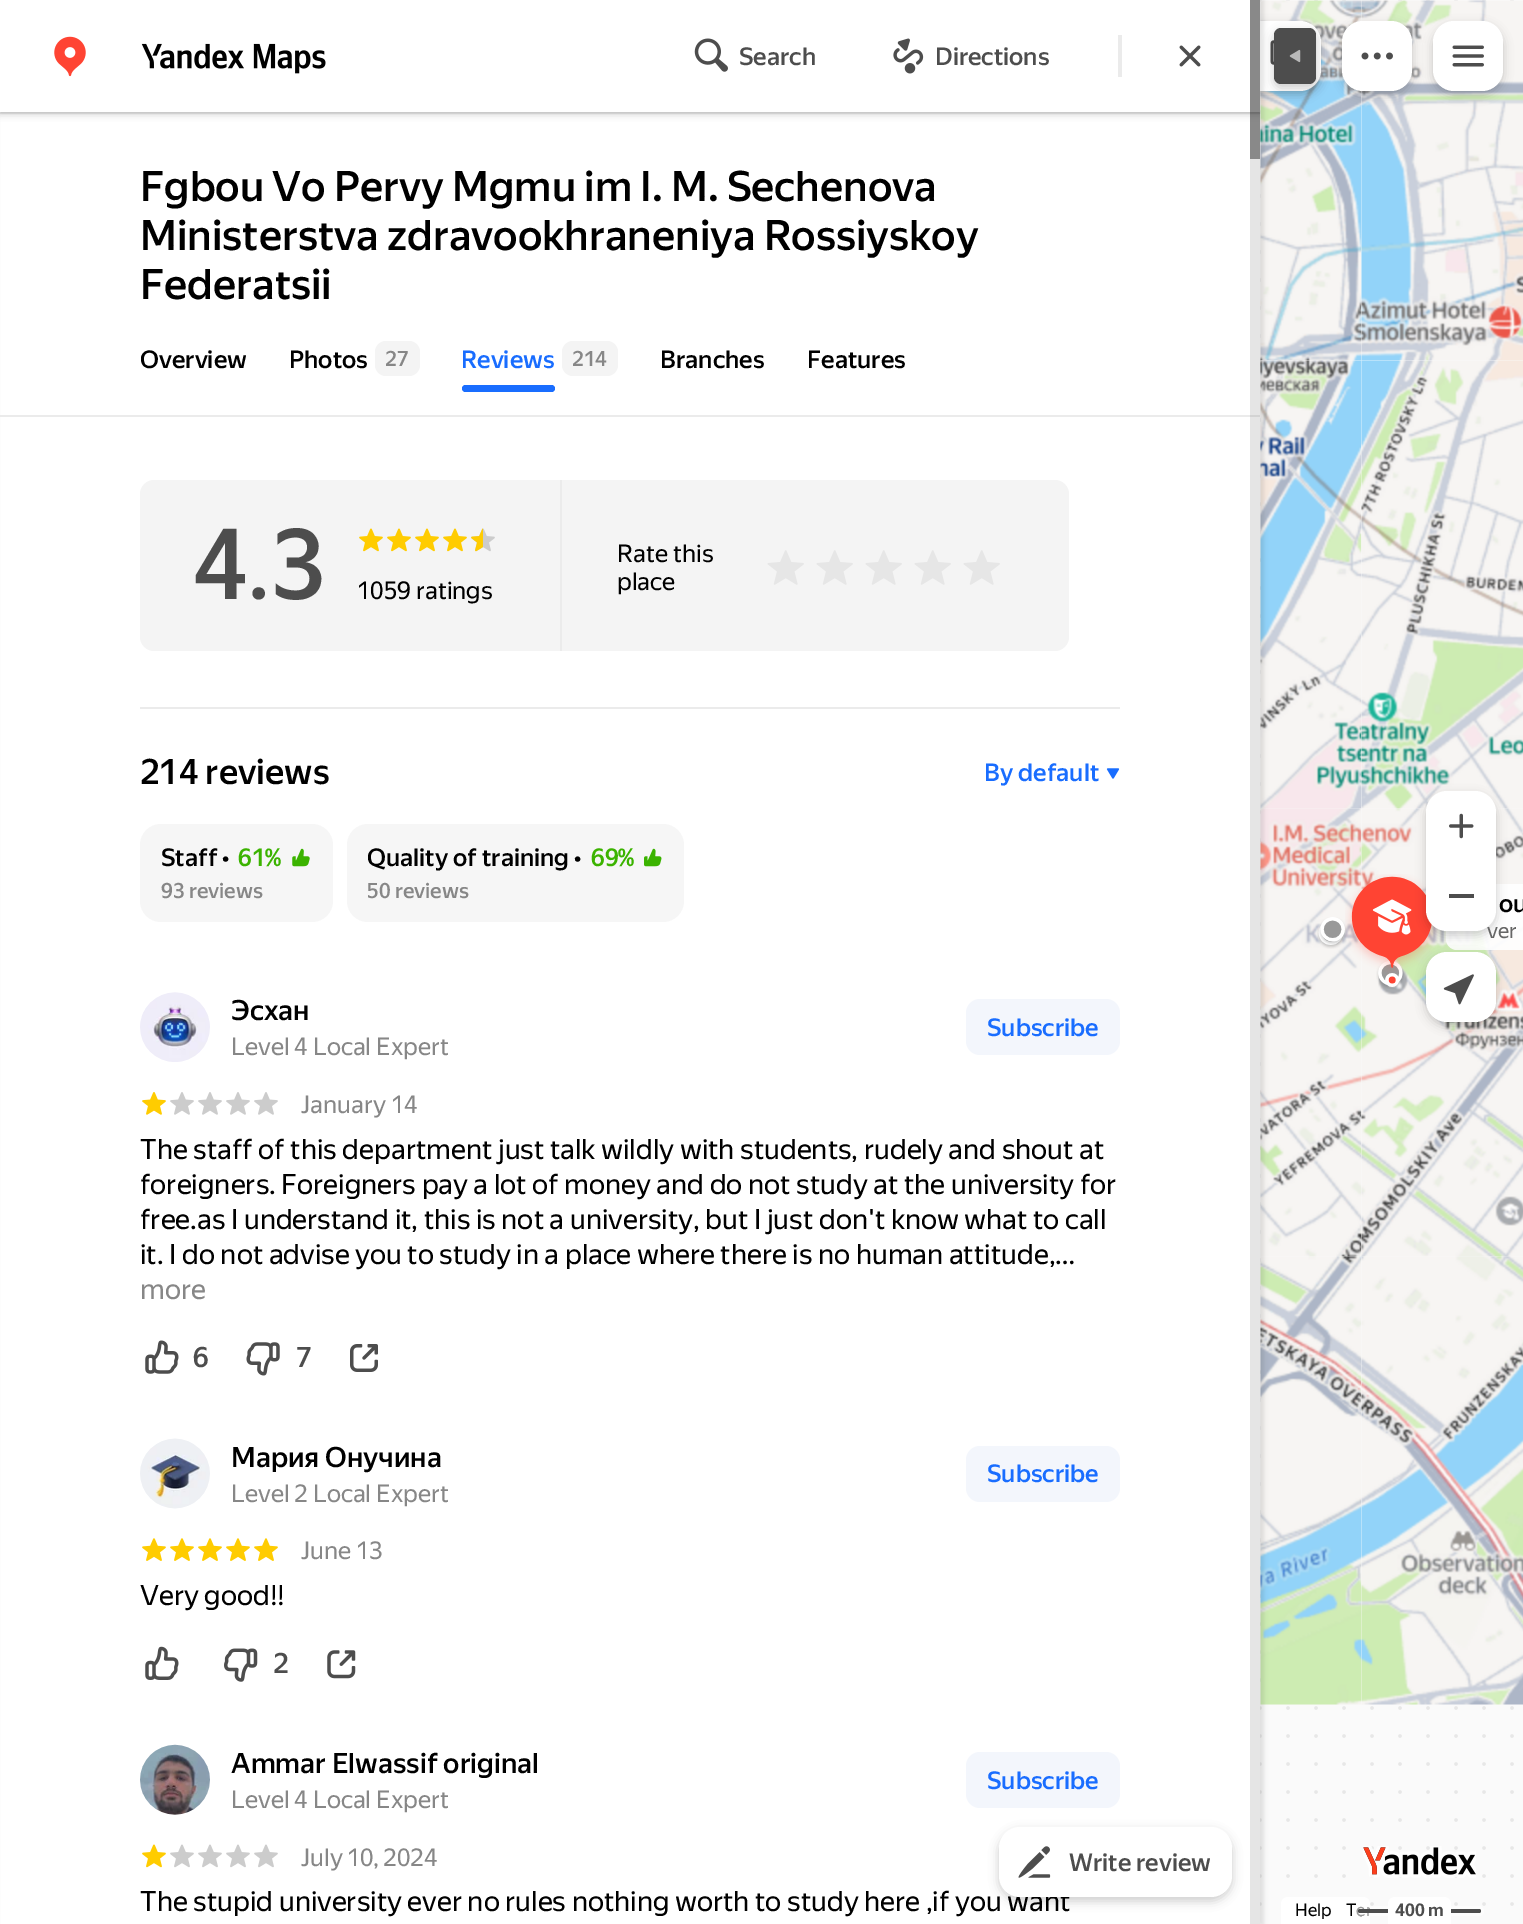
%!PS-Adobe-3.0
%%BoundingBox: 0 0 1523 1924
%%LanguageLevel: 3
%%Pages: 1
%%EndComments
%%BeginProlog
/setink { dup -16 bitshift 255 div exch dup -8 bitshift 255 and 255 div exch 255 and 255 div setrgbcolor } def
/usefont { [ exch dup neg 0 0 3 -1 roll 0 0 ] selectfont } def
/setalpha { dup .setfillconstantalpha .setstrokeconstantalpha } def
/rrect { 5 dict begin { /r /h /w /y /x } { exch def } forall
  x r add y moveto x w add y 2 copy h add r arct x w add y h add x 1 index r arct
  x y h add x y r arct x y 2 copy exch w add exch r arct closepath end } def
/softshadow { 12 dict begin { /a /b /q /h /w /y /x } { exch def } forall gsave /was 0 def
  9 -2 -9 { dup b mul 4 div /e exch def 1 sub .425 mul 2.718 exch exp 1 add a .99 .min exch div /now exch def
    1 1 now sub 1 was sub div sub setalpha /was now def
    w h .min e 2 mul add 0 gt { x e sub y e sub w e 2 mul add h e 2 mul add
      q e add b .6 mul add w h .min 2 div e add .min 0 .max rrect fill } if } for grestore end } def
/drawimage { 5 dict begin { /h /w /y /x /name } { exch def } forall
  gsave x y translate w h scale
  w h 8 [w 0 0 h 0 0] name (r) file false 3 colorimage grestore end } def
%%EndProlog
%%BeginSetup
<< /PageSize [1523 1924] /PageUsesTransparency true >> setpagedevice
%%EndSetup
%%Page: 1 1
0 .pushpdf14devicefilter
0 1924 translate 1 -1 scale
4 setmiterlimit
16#FFFFFF setink
0 0 1523 1924 rectfill
(img1.raw) 1260 0 263 1924 drawimage
(img35.raw) 1260 0 102 361 drawimage
16#000000 setink
1181 25 140 70 21 5 0.2 softshadow
16#FFFFFF setink
1251 21 moveto 1300 21 lineto 1311.5 21 1321 30.5 1321 42 curveto 1321 70 lineto 1321 81.5 1311.5 91 1300 91 curveto 1251 91 lineto closepath fill
(img29.raw) 1270 40 4 25 drawimage
(img36.raw) 1361 0 162 361 drawimage
(img37.raw) 1260 360 102 449 drawimage
(img38.raw) 1361 360 162 449 drawimage
(img39.raw) 1260 808 102 449 drawimage
(img40.raw) 1361 808 162 449 drawimage
(img41.raw) 1260 1256 102 449 drawimage
16#000000 setink
4 0 1260 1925 0 2 0.1 softshadow
16#FFFFFF setink
1 114 1259 1810 rectfill
16#EBEBEB setink
0 112 1260 2 rectfill
gsave
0 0 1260 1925 rectclip
16#000000 setink
0 107 1260 7 0 3.5 0.2 softshadow
grestore
16#000000 setink
1274 32 42 56 7 5 0.2 softshadow
16#FFFFFF setink
0 0 1260 112 rectfill
(img2.raw) 54 36 32 41 drawimage
(img3.raw) 141 43 185 31 drawimage
(img4.raw) 694 38 34 34 drawimage
/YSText-Medium 24.5 usefont
16#4D4D4D setink
739 65 moveto (Search) show
(img5.raw) 893 38 31 36 drawimage
935 65 moveto (Directions) show
16#EBEBEB setink
1118 35 4 42 rectfill
(img6.raw) 1179 45 22 22 drawimage
/YSText-Medium 42 usefont
16#000000 setink
[
    [(Fgbou Vo Pervy Mgmu im I. M. Sechenova) 140 201]
    [(Ministerstva zdravookhraneniya Rossiyskoy) 140 250]
    [(Federatsii) 140 299]
] { aload pop moveto show } forall
/YSText-Medium 24.5 usefont
140 368 moveto (Overview) show
289 368 moveto (Photos) show
16#F4F4F4 setink
375 341 45 35 11 rrect fill
/YSText-Medium 21 usefont
16#878787 setink
385 366 moveto (27) show
/YSText-Medium 24.5 usefont
16#196DFF setink
461 368 moveto (Reviews) show
16#F4F4F4 setink
562 341 56 35 11 rrect fill
/YSText-Medium 21 usefont
16#878787 setink
572 366 moveto (214) show
/YSText-Medium 24.5 usefont
16#000000 setink
660 368 moveto (Branches) show
807 368 moveto (Features) show
16#196DFF setink
462 385 93 7 3.5 rrect fill
16#EBEBEB setink
0 415 1260 2 rectfill
16#F4F4F4 setink
154 480 moveto 560 480 lineto 560 651 lineto 154 651 lineto 146.5 651 140 644.5 140 637 curveto 140 494 lineto 140 486.5 146.5 480 154 480 curveto closepath fill
/YSText-Medium 98 usefont
16#4D4D4D setink
193 599 moveto (4) show
/YSText-Regular 98 usefont
247 599 moveto (.) show
/YSText-Medium 98 usefont
271 599 moveto (3) show
(img7.raw) 359 528 24 24 drawimage
(img7.raw) 387 528 24 24 drawimage
(img7.raw) 415 528 24 24 drawimage
(img7.raw) 443 528 24 24 drawimage
(img8.raw) 471 528 24 24 drawimage
/YSText-Regular 24.5 usefont
16#000000 setink
357 599 moveto (1059 ratings) show
16#F4F4F4 setink
560 480 moveto 1055 480 lineto 1062.5 480 1069 486.5 1069 494 curveto 1069 637 lineto 1069 644.5 1062.5 651 1055 651 curveto 560 651 lineto closepath fill
16#EBEBEB setink
560 480 2 171 rectfill
16#000000 setink
617 562 moveto (Rate this) show
617 590 moveto (place) show
(img9.raw) 767 550 37 35 drawimage
(img9.raw) 816 550 37 35 drawimage
(img9.raw) 865 550 37 35 drawimage
(img9.raw) 914 550 37 35 drawimage
(img9.raw) 963 550 37 35 drawimage
16#EBEBEB setink
140 707 980 2 rectfill
/YSText-Medium 35 usefont
16#000000 setink
140 784 moveto (214 reviews) show
/YSText-Medium 24.5 usefont
16#196DFF setink
984 781 moveto (By default) show
(img10.raw) 1106 768 14 11 drawimage
16#F6F6F6 setink
140 824 193 98 21 rrect fill
16#000000 setink
161 866 moveto (Staff •) show
16#3BB300 setink
238 866 moveto (61%) show
(img11.raw) 292 848 18 19 drawimage
/YSText-Medium 21 usefont
16#878787 setink
161 898 moveto (93 reviews) show
16#F6F6F6 setink
347 824 337 98 21 rrect fill
/YSText-Medium 24.5 usefont
16#000000 setink
367 866 moveto (Quality of training •) show
16#3BB300 setink
591 866 moveto (69%) show
(img12.raw) 644 848 18 19 drawimage
/YSText-Medium 21 usefont
16#878787 setink
367 898 moveto (50 reviews) show
(img13.raw) 140 992 70 70 drawimage
/YSText-Medium 28 usefont
16#000000 setink
231 1020 moveto (Эсхан) show
/YSText-Regular 24.5 usefont
16#878787 setink
231 1055 moveto (Level 4 Local Expert) show
16#F3F6FC setink
966 999 154 56 14 rrect fill
/YSText-Medium 24.5 usefont
16#196DFF setink
987 1036 moveto (Subscribe) show
(img14.raw) 142 1092 24 23 drawimage
(img15.raw) 170 1092 24 23 drawimage
(img15.raw) 198 1092 24 23 drawimage
(img15.raw) 226 1092 24 23 drawimage
(img15.raw) 254 1092 24 23 drawimage
/YSText-Regular 24.5 usefont
16#878787 setink
301 1113 moveto (January 14) show
/YSText-Regular 28 usefont
16#000000 setink
[
    [(The staff of this department just talk wildly with students, rudely and shout at) 140 1159]
    [(foreigners. Foreigners pay a lot of money and do not study at the university for) 140 1194]
    [(free.as I understand it, this is not a university, but I just don't know what to call) 140 1229]
    [(it. I do not advise you to study in a place where there is no human attitude,…) 140 1264]
] { aload pop moveto show } forall
16#878787 setink
140 1299 moveto (more) show
(img16.raw) 145 1340 34 34 drawimage
/YSText-Medium 28 usefont
16#4D4D4D setink
193 1367 moveto (6) show
(img17.raw) 246 1342 34 34 drawimage
296 1367 moveto (7) show
(img18.raw) 350 1344 28 28 drawimage
(img19.raw) 140 1438 70 71 drawimage
16#000000 setink
231 1467 moveto (Мария Онучина) show
/YSText-Regular 24.5 usefont
16#878787 setink
231 1502 moveto (Level 2 Local Expert) show
16#F3F6FC setink
966 1446 154 56 14 rrect fill
/YSText-Medium 24.5 usefont
16#196DFF setink
987 1482 moveto (Subscribe) show
(img20.raw) 142 1538 24 23 drawimage
(img20.raw) 170 1538 24 23 drawimage
(img20.raw) 198 1538 24 23 drawimage
(img20.raw) 226 1538 24 23 drawimage
(img20.raw) 254 1538 24 23 drawimage
/YSText-Regular 24.5 usefont
16#878787 setink
301 1559 moveto (June 13) show
/YSText-Regular 28 usefont
16#000000 setink
140 1605 moveto (Very good!!) show
(img21.raw) 145 1646 34 34 drawimage
(img22.raw) 224 1648 34 34 drawimage
/YSText-Medium 28 usefont
16#4D4D4D setink
273 1673 moveto (2) show
(img23.raw) 327 1650 29 29 drawimage
(img24.raw) 140 1744 70 71 drawimage
16#000000 setink
231 1773 moveto (Ammar Elwassif original) show
/YSText-Regular 24.5 usefont
16#878787 setink
231 1808 moveto (Level 4 Local Expert) show
16#F3F6FC setink
966 1752 154 56 14 rrect fill
/YSText-Medium 24.5 usefont
16#196DFF setink
987 1789 moveto (Subscribe) show
(img25.raw) 142 1844 24 24 drawimage
(img26.raw) 170 1844 24 24 drawimage
(img26.raw) 198 1844 24 24 drawimage
(img26.raw) 226 1844 24 24 drawimage
(img26.raw) 254 1844 24 24 drawimage
/YSText-Regular 24.5 usefont
16#878787 setink
301 1866 moveto -1 0 32 (July 10, 2024) widthshow
/YSText-Regular 28 usefont
16#000000 setink
140 1911 moveto (The stupid university ever no rules nothing worth to study here ,if you want) show
999 1831 233 70 21 5 0.2 softshadow
16#FFFFFF setink
999 1827 233 70 21 rrect fill
(img27.raw) 1018 1846 33 32 drawimage
/YSText-Medium 24.5 usefont
16#4D4D4D setink
1069 1871 moveto (Write review) show
0.1 setalpha
16#000000 setink
1250 0 10 1924 rectfill
0.4 setalpha
1250 0 10 159 rectfill
1 setalpha
16#4D4D4D setink
1274 28 42 56 7 rrect fill
(img28.raw) 1289 49 12 14 drawimage
16#000000 setink
1342 25 70 70 21 5 0.2 softshadow
16#FFFFFF setink
1342 21 70 70 21 rrect fill
(img30.raw) 1361 52 32 8 drawimage
16#000000 setink
1433 25 70 70 21 5 0.2 softshadow
16#FFFFFF setink
1433 21 70 70 21 rrect fill
(img31.raw) 1452 45 32 22 drawimage
(img46.raw) 1317 923 28 26 drawimage
(img43.raw) 1319 917 28 28 drawimage
(img47.raw) 1376 960 28 29 drawimage
(img44.raw) 1345 874 94 113 drawimage
(img45.raw) 1372 899 40 36 drawimage
0.9 setalpha
1457 884 moveto 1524 884 lineto 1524 950 lineto 1457 950 lineto 1451 950 1446 945 1446 939 curveto 1446 895 lineto 1446 889 1451 884 1457 884 curveto closepath fill
1 setalpha
16#000000 setink
1426 795 70 140 21 5 0.2 softshadow
16#FFFFFF setink
1447 791 moveto 1475 791 lineto 1486.5 791 1496 800.5 1496 812 curveto 1496 861 lineto 1426 861 lineto 1426 812 lineto 1426 800.5 1435.5 791 1447 791 curveto closepath fill
(img32.raw) 1449 813 25 26 drawimage
/YSText-Regular 21 usefont
16#666666 setink
1487 938 moveto (ver) show
16#FFFFFF setink
1426 861 moveto 1496 861 lineto 1496 910 lineto 1496 921.5 1486.5 931 1475 931 curveto 1447 931 lineto 1435.5 931 1426 921.5 1426 910 curveto closepath fill
16#4D4D4D setink
1449 894 25 4 rectfill
16#000000 setink
1426 956 70 70 21 5 0.2 softshadow
16#FFFFFF setink
1426 952 70 70 21 rrect fill
(img33.raw) 1443 974 31 31 drawimage
(img34.raw) 1363 1846 113 32 drawimage
1288 1897 moveto 1363 1897 lineto 1367 1897 1370 1900 1370 1904 curveto 1370 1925 lineto 1281 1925 lineto 1281 1904 lineto 1281 1900 1284 1897 1288 1897 curveto closepath fill
/YSText-Regular 17.5 usefont
16#000000 setink
1295 1916 moveto (Help) show
gsave
1288 1897 moveto 1363 1897 lineto 1367 1897 1370 1900 1370 1904 curveto 1370 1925 lineto 1281 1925 lineto 1281 1904 lineto 1281 1900 1284 1897 1288 1897 curveto closepath clip newpath
1346 1916 moveto (Ter) show
grestore
0.6 setalpha
16#FFFFFF setink
1355 1906 129 10 5 rrect fill
1 setalpha
16#4D4D4D setink
1358 1909 123 4 2 rrect fill
16#FFFFFF setink
1395 1897 moveto 1444 1897 lineto 1448 1897 1451 1900 1451 1904 curveto 1451 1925 lineto 1388 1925 lineto 1388 1904 lineto 1388 1900 1391 1897 1395 1897 curveto closepath fill
/YSText-Bold 17.5 usefont
16#4D4D4D setink
1395 1916 moveto (400 m) show
(img42.raw) 1361 1256 162 449 drawimage
/YSText-Medium 24.5 usefont
16#000000 setink
1499 912 moveto (ou) show
.poppdf14devicefilter showpage
%%EOF
